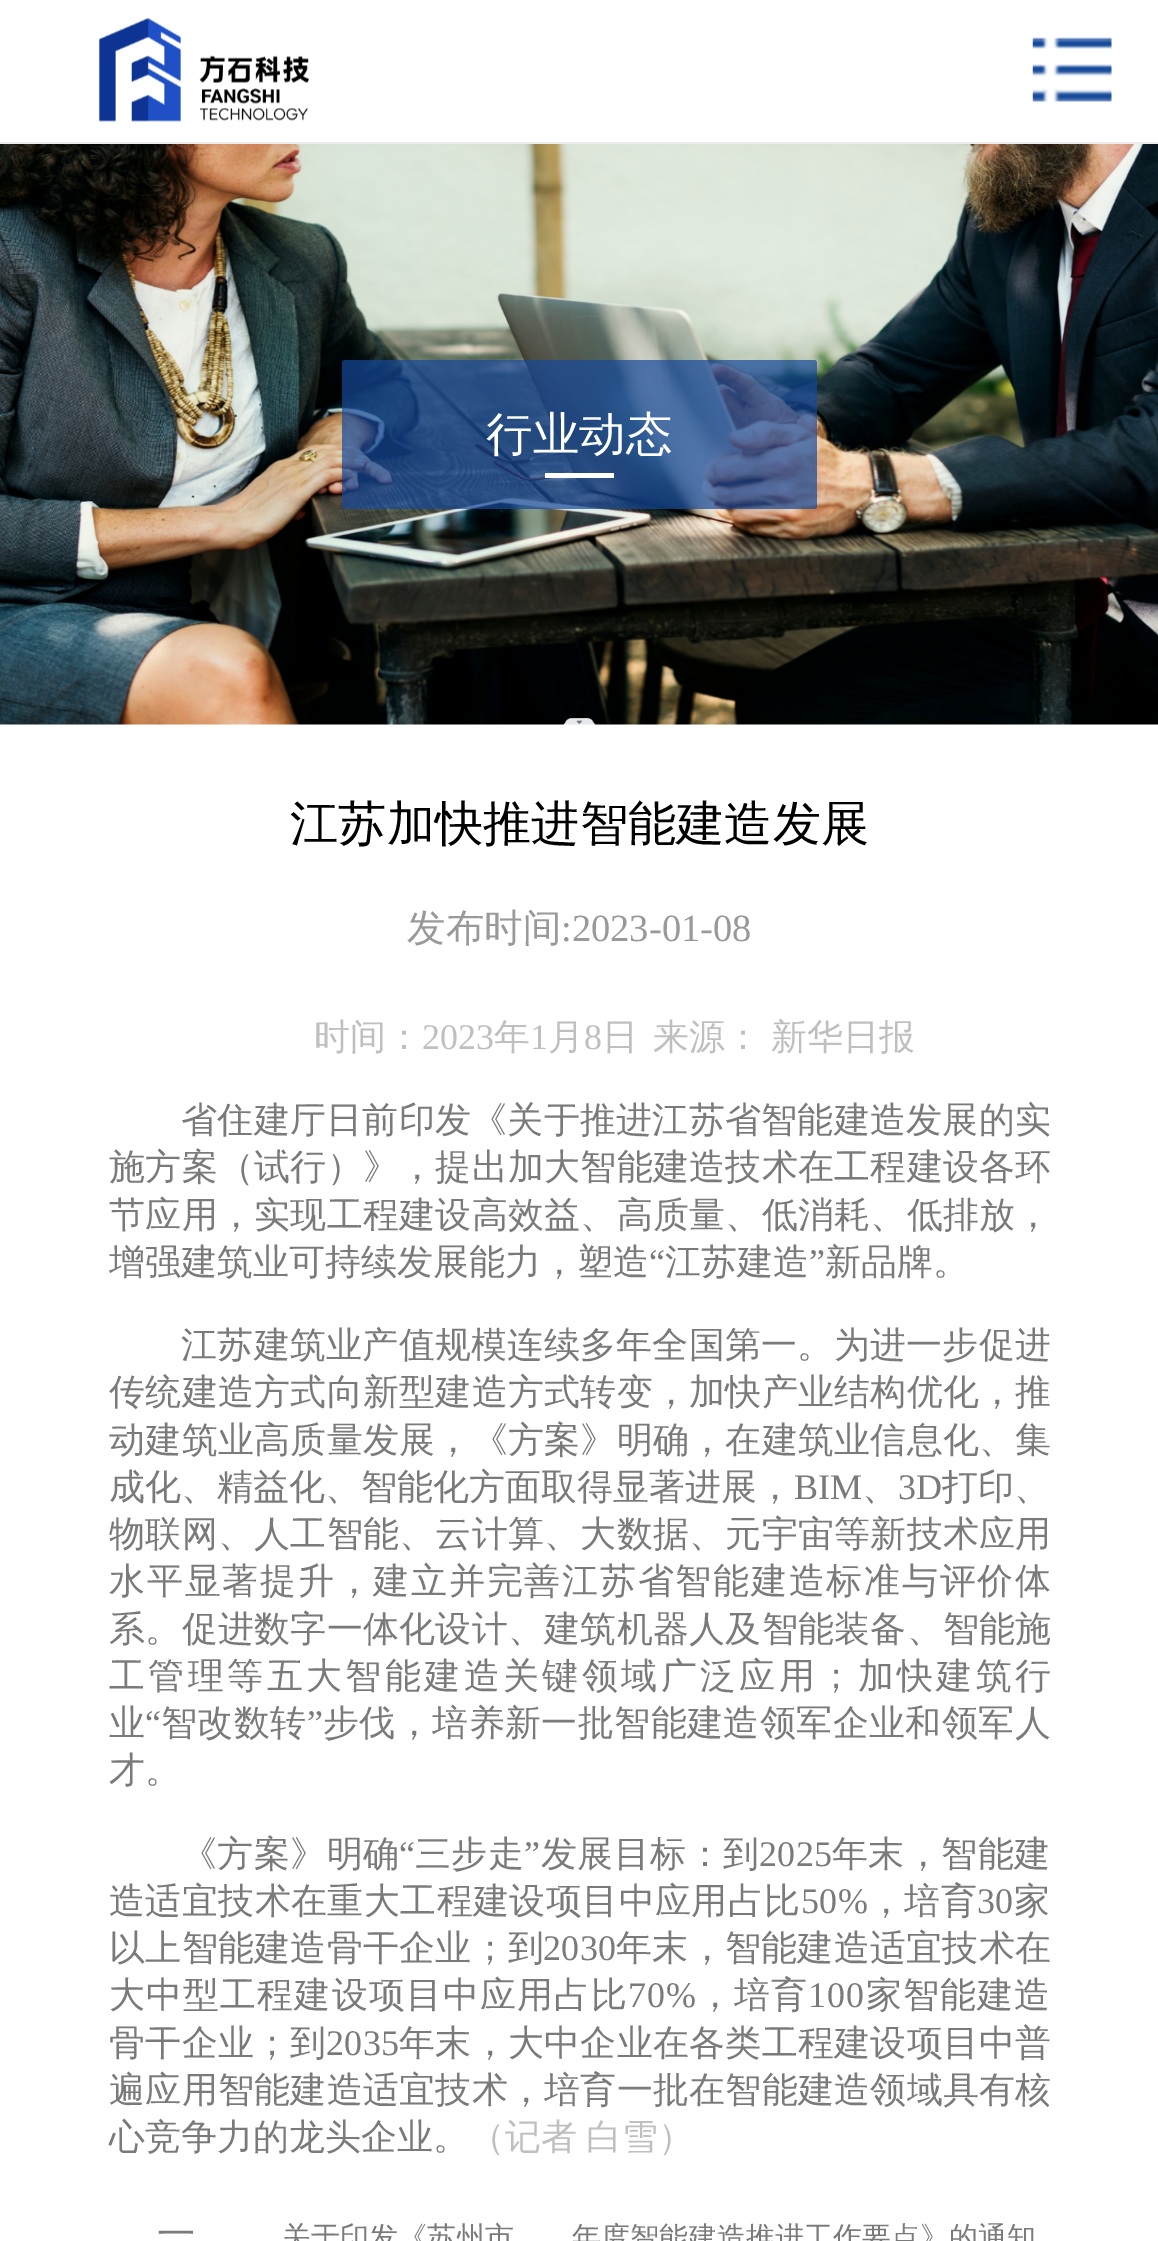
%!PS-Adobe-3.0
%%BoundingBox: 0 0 1158 2241
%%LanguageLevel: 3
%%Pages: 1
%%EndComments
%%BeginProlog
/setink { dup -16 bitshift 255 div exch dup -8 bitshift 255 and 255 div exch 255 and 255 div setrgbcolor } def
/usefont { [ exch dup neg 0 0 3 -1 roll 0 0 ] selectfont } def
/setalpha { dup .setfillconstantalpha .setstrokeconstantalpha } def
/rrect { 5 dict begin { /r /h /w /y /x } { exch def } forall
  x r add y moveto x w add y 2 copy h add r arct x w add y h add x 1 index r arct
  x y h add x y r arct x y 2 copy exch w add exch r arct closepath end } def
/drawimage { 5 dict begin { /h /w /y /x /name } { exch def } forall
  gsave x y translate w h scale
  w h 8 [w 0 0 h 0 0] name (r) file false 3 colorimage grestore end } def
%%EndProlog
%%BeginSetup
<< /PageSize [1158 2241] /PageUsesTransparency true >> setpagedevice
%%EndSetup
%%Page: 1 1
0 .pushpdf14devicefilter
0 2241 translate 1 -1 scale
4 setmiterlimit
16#FFFFFF setink
0 0 1158 2241 rectfill
16#EBEBEB setink
0 142 1158 2 rectfill
(img1.raw) 99 17 210 105 drawimage
(img2.raw) 1032 37 80 65 drawimage
(img3.raw) 0 144 1158 581 drawimage
0.7 setalpha
16#15489A setink
342 360 475 149 3 rrect fill
/WenQuanYiZenHei-Medium 46.5 usefont
1 setalpha
16#FFFFFF setink
486 450 moveto (行业动态) show
545 473 69 5 rectfill
/WenQuanYiZenHei-Medium 48.25 usefont
16#000000 setink
290 840 moveto (江苏加快推进智能建造发展) show
/WenQuanYiZenHei-Medium 38.5 usefont
16#999999 setink
407 941 moveto (发布时间) show
/LiberationSerif-Regular 38.5 usefont
561 941 moveto (:2023-01-08) show
/WenQuanYiZenHei-Medium 36 usefont
16#BFBFBF setink
314 1049 moveto (时间：) show
/LiberationSerif-Regular 36 usefont
422 1049 moveto (2023) show
/WenQuanYiZenHei-Medium 36 usefont
494 1049 moveto (年) show
/LiberationSerif-Regular 36 usefont
530 1049 moveto (1) show
/WenQuanYiZenHei-Medium 36 usefont
548 1049 moveto (月) show
/LiberationSerif-Regular 36 usefont
584 1049 moveto (8) show
/WenQuanYiZenHei-Medium 36 usefont
602 1049 moveto (日) show
653 1049 moveto -1 0 32 (来源： 新华日报) widthshow
16#7A7A7A setink
181 1132 moveto 0.25 0 (省住建厅日前印发《关于推进江苏省智能建造发展的实) ashow
109 1179 moveto 0.25 0 (施方案（试行）》，提出加大智能建造技术在工程建设各环) ashow
109 1227 moveto 0.25 0 (节应用，实现工程建设高效益、高质量、低消耗、低排放，) ashow
109 1274 moveto (增强建筑业可持续发展能力，塑造) show
/LiberationSerif-Regular 36 usefont
649 1274 moveto (“) show
/WenQuanYiZenHei-Medium 36 usefont
665 1274 moveto (江苏建造) show
/LiberationSerif-Regular 36 usefont
809 1274 moveto (”) show
/WenQuanYiZenHei-Medium 36 usefont
825 1274 moveto (新品牌。) show
181 1357 moveto 0.25 0 (江苏建筑业产值规模连续多年全国第一。为进一步促进) ashow
109 1404 moveto 0.25 0 (传统建造方式向新型建造方式转变，加快产业结构优化，推) ashow
109 1452 moveto 0.25 0 (动建筑业高质量发展，《方案》明确，在建筑业信息化、集) ashow
109 1499 moveto (成化、精益化、智能化方面取得显著进展，) show
/LiberationSerif-Regular 36 usefont
794 1499 moveto (BIM) show
/WenQuanYiZenHei-Medium 36 usefont
862 1499 moveto (、) show
/LiberationSerif-Regular 36 usefont
898 1499 moveto (3D) show
/WenQuanYiZenHei-Medium 36 usefont
942 1499 moveto (打印、) show
109 1546 moveto 0.25 0 (物联网、人工智能、云计算、大数据、元宇宙等新技术应用) ashow
109 1593 moveto 1.75 0 (水平显著提升，建立并完善江苏省智能建造标准与评价体) ashow
109 1641 moveto 0.25 0 (系。促进数字一体化设计、建筑机器人及智能装备、智能施) ashow
109 1688 moveto 3.4 0 (工管理等五大智能建造关键领域广泛应用；加快建筑行) ashow
109 1735 moveto 0.4 0 (业) ashow
/LiberationSerif-Regular 36 usefont
145 1735 moveto 0.4 0 (“) ashow
/WenQuanYiZenHei-Medium 36 usefont
161 1735 moveto 0.4 0 (智改数转) ashow
/LiberationSerif-Regular 36 usefont
307 1735 moveto 0.4 0 (”) ashow
/WenQuanYiZenHei-Medium 36 usefont
323 1735 moveto 0.4 0 (步伐，培养新一批智能建造领军企业和领军人) ashow
109 1782 moveto (才。) show
181 1866 moveto 0.4 0 (《方案》明确) ashow
/LiberationSerif-Regular 36 usefont
399 1866 moveto 0.4 0 (“) ashow
/WenQuanYiZenHei-Medium 36 usefont
415 1866 moveto 0.4 0 (三步走) ashow
/LiberationSerif-Regular 36 usefont
524 1866 moveto 0.4 0 (”) ashow
/WenQuanYiZenHei-Medium 36 usefont
541 1866 moveto 0.4 0 (发展目标：到) ashow
/LiberationSerif-Regular 36 usefont
759 1866 moveto 0.4 0 (2025) ashow
/WenQuanYiZenHei-Medium 36 usefont
832 1866 moveto 0.4 0 (年末，智能建) ashow
109 1913 moveto 0.4 0 (造适宜技术在重大工程建设项目中应用占比) ashow
/LiberationSerif-Regular 36 usefont
801 1913 moveto 0.4 0 (50%) ashow
/WenQuanYiZenHei-Medium 36 usefont
868 1913 moveto 0.4 0 (，培育) ashow
/LiberationSerif-Regular 36 usefont
977 1913 moveto 0.4 0 (30) ashow
/WenQuanYiZenHei-Medium 36 usefont
1014 1913 moveto 0.4 0 (家) ashow
109 1960 moveto 0.25 0 (以上智能建造骨干企业；到) ashow
/LiberationSerif-Regular 36 usefont
543 1960 moveto 0.25 0 (2030) ashow
/WenQuanYiZenHei-Medium 36 usefont
616 1960 moveto 0.25 0 (年末，智能建造适宜技术在) ashow
109 2007 moveto 1.1 0 (大中型工程建设项目中应用占比) ashow
/LiberationSerif-Regular 36 usefont
628 2007 moveto 1.1 0 (70%) ashow
/WenQuanYiZenHei-Medium 36 usefont
697 2007 moveto 1.1 0 (，培育) ashow
/LiberationSerif-Regular 36 usefont
808 2007 moveto 1.1 0 (100) ashow
/WenQuanYiZenHei-Medium 36 usefont
866 2007 moveto 1.1 0 (家智能建造) ashow
109 2055 moveto 0.25 0 (骨干企业；到) ashow
/LiberationSerif-Regular 36 usefont
326 2055 moveto 0.25 0 (2035) ashow
/WenQuanYiZenHei-Medium 36 usefont
399 2055 moveto 0.25 0 (年末，大中企业在各类工程建设项目中普) ashow
109 2102 moveto 0.25 0 (遍应用智能建造适宜技术，培育一批在智能建造领域具有核) ashow
109 2149 moveto (心竞争力的龙头企业。) show
16#BFBFBF setink
469 2149 moveto -2 0 32 (（记者 白雪）) widthshow
/WenQuanYiZenHei-Medium 38.5 usefont
16#7A7A7A setink
157 2247 moveto (一) show
/WenQuanYiZenHei-Medium 29 usefont
282 2247 moveto (关于印发《苏州市) show
572 2247 moveto (年度智能建造推进工作要点》的通知) show
.poppdf14devicefilter showpage
%%EOF
